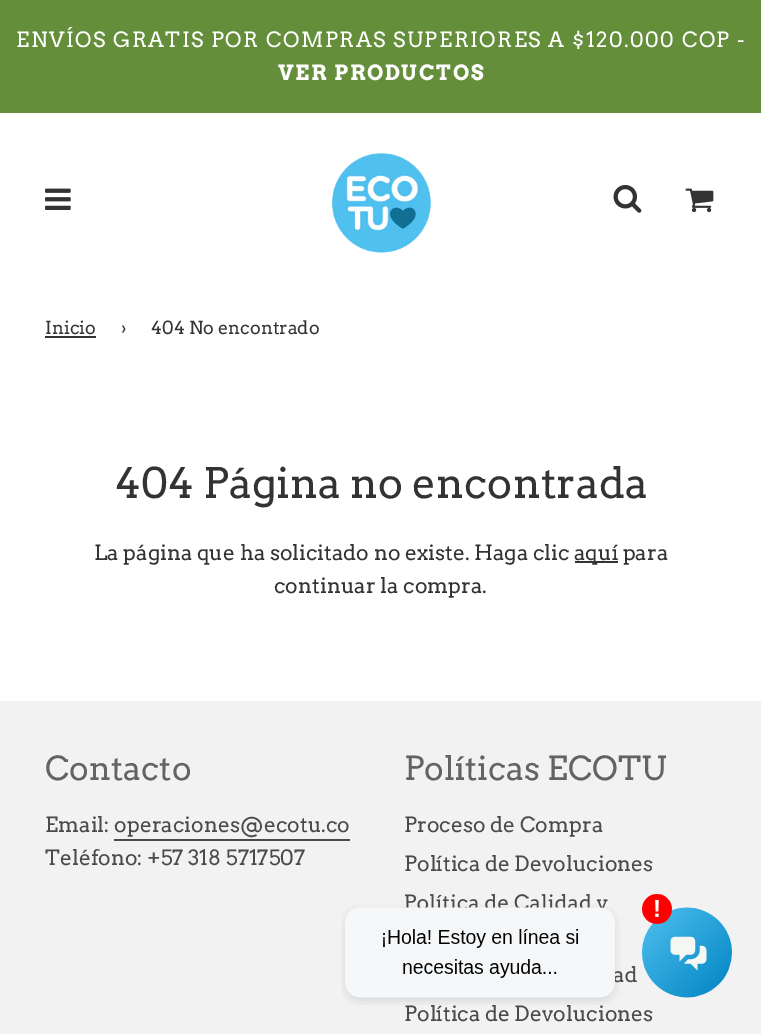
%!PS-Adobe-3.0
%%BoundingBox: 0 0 761 1034
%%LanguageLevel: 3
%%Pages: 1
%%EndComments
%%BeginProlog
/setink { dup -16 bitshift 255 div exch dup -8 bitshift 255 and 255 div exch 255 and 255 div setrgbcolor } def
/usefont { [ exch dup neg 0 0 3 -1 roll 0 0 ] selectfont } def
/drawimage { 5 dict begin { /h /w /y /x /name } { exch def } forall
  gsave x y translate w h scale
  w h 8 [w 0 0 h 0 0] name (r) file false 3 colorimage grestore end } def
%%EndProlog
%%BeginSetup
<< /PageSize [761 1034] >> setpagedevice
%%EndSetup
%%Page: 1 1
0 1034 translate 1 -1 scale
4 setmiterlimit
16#FFFFFF setink
0 0 761 1034 rectfill
16#658E3B setink
0 0 761 113 rectfill
/Arvo-Regular 21 usefont
16#FFFFFF setink
16 47 moveto 1.5 0 (ENVÍOS GRATIS POR COMPRAS SUPERIORES A $120.000 COP -) ashow
/Arvo-Bold 21 usefont
278 80 moveto 1.5 0 (VER PRODUCTOS) ashow
(img1.raw) 45 188 26 22 drawimage
(img2.raw) 332 153 99 100 drawimage
(img3.raw) 613 184 29 29 drawimage
(img4.raw) 685 188 29 25 drawimage
/Arvo-Regular 18 usefont
16#333333 setink
45 334 moveto (Inicio) show
45 336 51 2 rectfill
121 334 moveto (›) show
151 334 moveto (404 No encontrado) show
/Arvo-Regular 42 usefont
115 498 moveto (404 Página no encontrada) show
/Arvo-Regular 21 usefont
94 560 moveto (La página que ha solicitado no existe. Haga clic) show
575 561 43 2 rectfill
574 560 moveto (aquí para) show
274 593 moveto (continuar la compra.) show
16#F2F2F2 setink
0 701 761 333 rectfill
/Arvo-Regular 33 usefont
16#636363 setink
45 780 moveto (Contacto) show
/Arvo-Regular 21 usefont
16#4A4A4A setink
45 832 moveto (Email: operaciones@ecotu.co) show
114 839 236 2 rectfill
45 865 moveto (Teléfono: +57 318 5717507) show
/Arvo-Regular 33 usefont
16#636363 setink
404 780 moveto (Políticas ECOTU) show
/Arvo-Regular 21 usefont
16#4A4A4A setink
[
    [(Proceso de Compra) 404 832]
    [(Política de Devoluciones) 404 871]
    [(Política de Calidad y) 404 910]
    [(ad) 613 982]
    [(Política de Devoluciones) 404 1021]
] { aload pop moveto show } forall
(img5.raw) 341 894 391 111 drawimage
showpage
%%EOF
